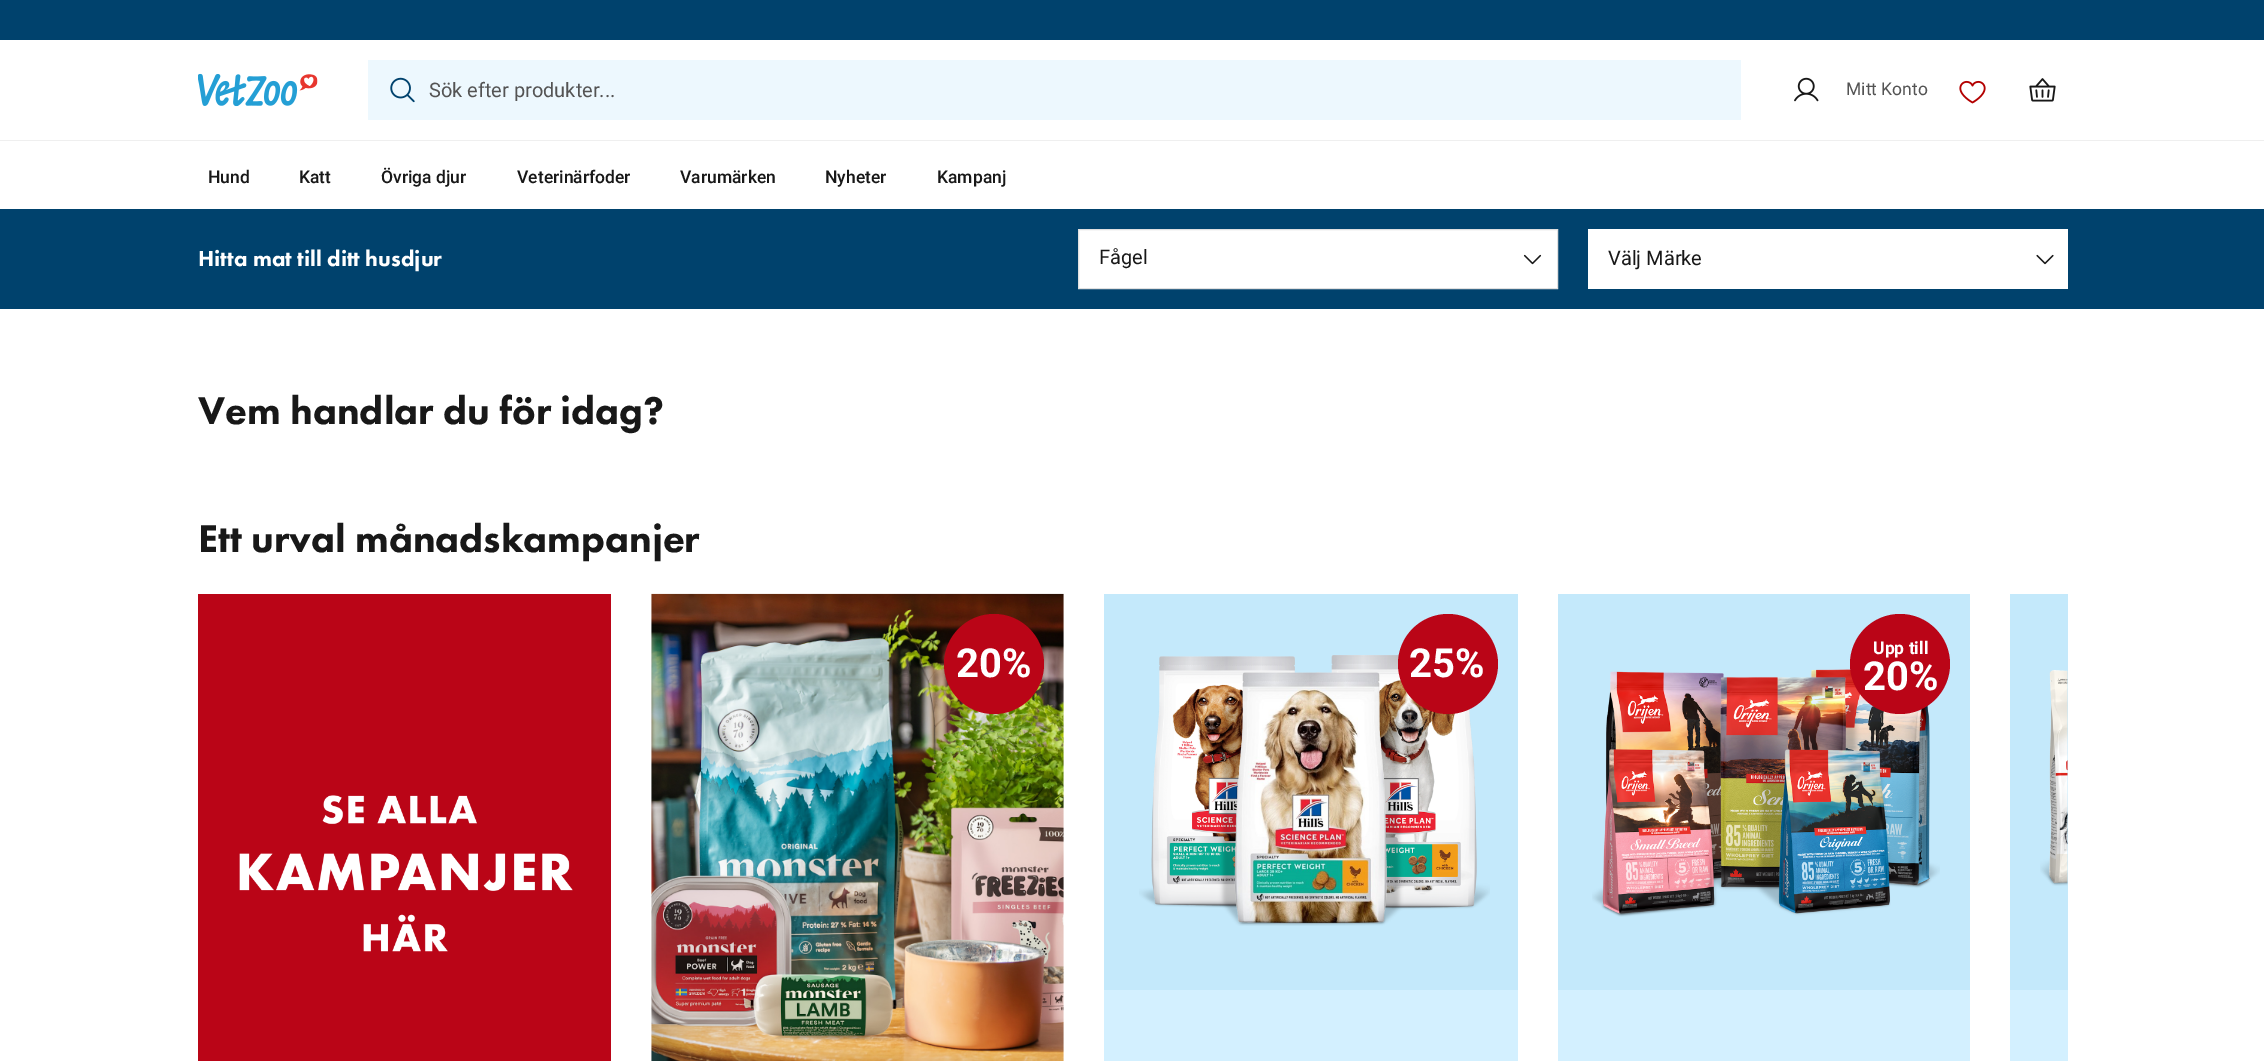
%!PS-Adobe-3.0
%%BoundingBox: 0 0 2264 1061
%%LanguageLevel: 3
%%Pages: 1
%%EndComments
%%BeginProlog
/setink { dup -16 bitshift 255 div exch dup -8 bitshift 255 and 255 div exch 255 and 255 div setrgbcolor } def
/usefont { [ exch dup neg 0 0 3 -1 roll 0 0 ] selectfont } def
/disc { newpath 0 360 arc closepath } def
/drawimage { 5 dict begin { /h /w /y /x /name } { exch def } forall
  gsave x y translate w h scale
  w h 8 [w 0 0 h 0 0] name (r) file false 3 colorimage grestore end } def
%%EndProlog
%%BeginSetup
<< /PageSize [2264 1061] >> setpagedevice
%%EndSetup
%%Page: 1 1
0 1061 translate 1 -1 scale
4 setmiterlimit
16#FFFFFF setink
0 0 2264 1061 rectfill
16#00426D setink
0 0 2264 40 rectfill
(img1.raw) 198 73 120 34 drawimage
16#EDF8FE setink
368 60 1373 60 rectfill
(img2.raw) 390 77 25 26 drawimage
/Roboto-Regular 20 usefont
16#545454 setink
429 97 moveto (Sök efter produkter...) show
(img3.raw) 1794 77 25 25 drawimage
/Roboto-Regular 17.5 usefont
1846 95 moveto (Mitt Konto) show
(img4.raw) 1959 80 27 24 drawimage
(img5.raw) 2029 78 27 24 drawimage
16#EFEFEF setink
0 140 2264 1 rectfill
/Roboto-Medium 17.5 usefont
16#181818 setink
[
    [(Hund) 208 183]
    [(Katt) 299 183]
    [(Övriga djur) 381 183]
    [(Veterinärfoder) 517 183]
    [(Varumärken) 680 183]
    [(Nyheter) 825 183]
    [(Kampanj) 937 183]
] { aload pop moveto show } forall
16#00426D setink
0 209 2264 100 rectfill
/FuturaPT-Black 22.5 usefont
16#FFFFFF setink
198 266 moveto (Hitta mat till ditt husdjur) show
1078.5 229.5 moveto 1557.5 229.5 lineto 1557.5 288.5 lineto 1078.5 288.5 lineto closepath gsave fill grestore
16#E0E0E0 setink
stroke
/Roboto-Regular 20 usefont
16#181818 setink
1099 264 moveto (Fågel) show
(img6.raw) 1523 254 19 11 drawimage
16#FFFFFF setink
1588 229 480 60 rectfill
16#181818 setink
1608 265 moveto (Välj Märke) show
(img7.raw) 2036 254 18 11 drawimage
/FuturaPT-Black 40 usefont
198 424 moveto (Vem handlar du för idag?) show
198 552 moveto (Ett urval månadskampanjer) show
16#BA0517 setink
198 594 413 467 rectfill
(img8.raw) 239 795 334 157 drawimage
(img9.raw) 651 593 413 468 drawimage
994 664 50 disc fill
/Roboto-Bold 40 usefont
16#FFFFFF setink
956 677 moveto (20%) show
16#D3F0FF setink
1104 990 414 71 rectfill
16#C4E9FB setink
1104 594 414 396 rectfill
(img10.raw) 1139 655 351 271 drawimage
16#BA0517 setink
1448 664 50 disc fill
16#FFFFFF setink
1409 677 moveto (25%) show
16#D3F0FF setink
1558 990 412 71 rectfill
16#C4E9FB setink
1558 594 412 396 rectfill
(img11.raw) 1592 669 348 248 drawimage
16#BA0517 setink
1900 664 50 disc fill
/Roboto-Bold 17.5 usefont
16#FFFFFF setink
1873 654 moveto (Upp till) show
/Roboto-Bold 40 usefont
1863 690 moveto (20%) show
16#D3F0FF setink
2010 990 58 71 rectfill
16#C4E9FB setink
2010 594 58 396 rectfill
(img12.raw) 2040 670 28 216 drawimage
showpage
%%EOF
